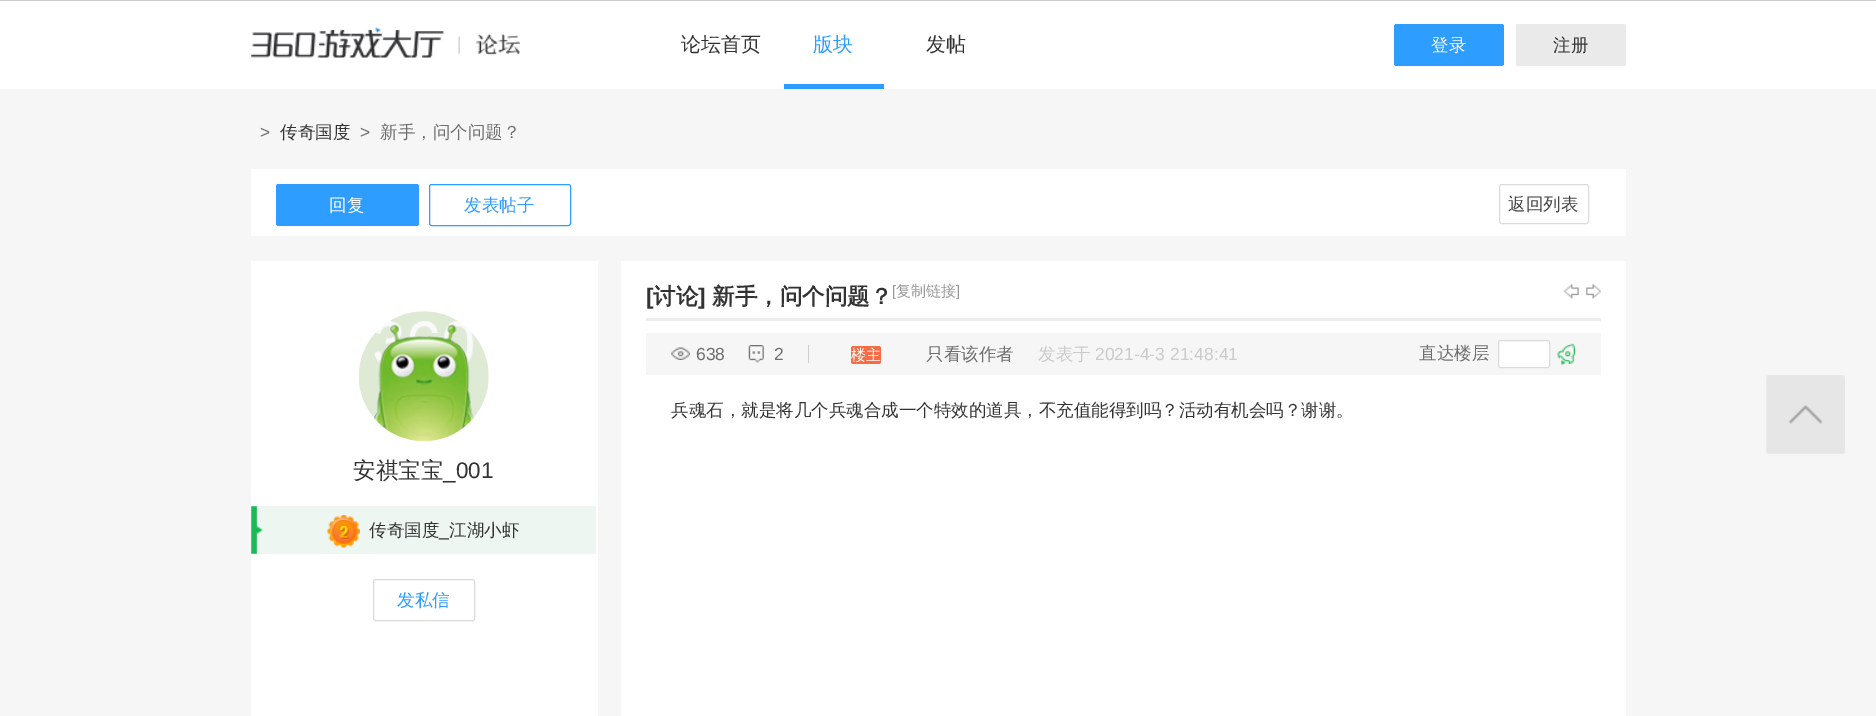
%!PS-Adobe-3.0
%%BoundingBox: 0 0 1876 716
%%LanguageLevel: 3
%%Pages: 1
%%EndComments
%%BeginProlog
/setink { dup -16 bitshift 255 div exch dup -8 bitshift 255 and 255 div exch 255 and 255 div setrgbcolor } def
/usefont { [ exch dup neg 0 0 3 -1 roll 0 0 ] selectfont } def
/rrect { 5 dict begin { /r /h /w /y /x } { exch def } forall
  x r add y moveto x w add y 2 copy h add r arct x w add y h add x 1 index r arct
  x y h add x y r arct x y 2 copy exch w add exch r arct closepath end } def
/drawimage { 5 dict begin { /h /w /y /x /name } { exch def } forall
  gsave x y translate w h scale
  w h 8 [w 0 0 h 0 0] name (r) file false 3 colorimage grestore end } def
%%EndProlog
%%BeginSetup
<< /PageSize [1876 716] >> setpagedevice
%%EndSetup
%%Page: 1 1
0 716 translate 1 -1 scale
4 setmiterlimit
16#CDCDCD setink
0 0 1876 716 rectfill
16#FFFFFF setink
0 1 1876 88 rectfill
(img1.raw) 251 27 269 31 drawimage
/WenQuanYiZenHei-Medium 20 usefont
16#333333 setink
681 51 moveto (论坛首页) show
16#2D9DFF setink
784 84 100 5 rectfill
813 51 moveto (版块) show
16#333333 setink
926 51 moveto (发帖) show
16#2D9DFF setink
1394 24 110 42 2.5 rrect fill
/WenQuanYiZenHei-Medium 17.5 usefont
16#FFFFFF setink
1431 51 moveto (登录) show
16#EAEAEA setink
1516 24 110 42 2.5 rrect fill
16#333333 setink
1553 51 moveto (注册) show
16#F6F6F6 setink
0 89 1876 627 rectfill
/LiberationSans-Regular 17.5 usefont
16#6F6F6F setink
260 138 moveto (>) show
/WenQuanYiZenHei-Medium 17.5 usefont
16#333333 setink
280 138 moveto (传奇国度) show
/LiberationSans-Regular 17.5 usefont
16#6F6F6F setink
360 138 moveto (>) show
/WenQuanYiZenHei-Medium 17.5 usefont
380 138 moveto (新手，问个问题？) show
16#FFFFFF setink
251 169 1375 67 rectfill
16#2D9DFF setink
276 184 143 42 2.5 rrect fill
16#FFFFFF setink
329 211 moveto (回复) show
16#2D9DFF setink
429.5 184.5 141 41 2 rrect stroke
464 211 moveto (发表帖子) show
16#DCDCDC setink
1499.5 184.5 89 39 2 rrect stroke
16#444444 setink
1508 210 moveto (返回列表) show
[
    [251 261 347 455 16#FFFFFF]
    [621 261 1005 455 16#FFFFFF]
    [646 318 955 3 16#EDEDED]
] { aload pop setink rectfill } forall
/LiberationSans-Bold 22.5 usefont
16#333333 setink
646 304 moveto ([) show
/WenQuanYiZenHei-Bold 22.5 usefont
653 304 moveto (讨论) show
/LiberationSans-Bold 22.5 usefont
698 304 moveto (]) show
/WenQuanYiZenHei-Bold 22.5 usefont
712 304 moveto (新手，问个问题？) show
/LiberationSans-Regular 15 usefont
16#999999 setink
892 296 moveto ([) show
/WenQuanYiZenHei-Medium 15 usefont
896 296 moveto (复制链接) show
/LiberationSans-Regular 15 usefont
956 296 moveto (]) show
(img2.raw) 1563 283 16 16 drawimage
(img3.raw) 1586 283 15 16 drawimage
16#F6F6F6 setink
646 333 955 42 rectfill
(img4.raw) 671 347 19 13 drawimage
/LiberationSans-Regular 17.5 usefont
16#6F6F6F setink
696 360 moveto (638) show
(img5.raw) 748 345 16 18 drawimage
16#CFCFCF setink
808 345 1 18 rectfill
16#6F6F6F setink
774 360 moveto (2) show
16#F56D45 setink
851 346 30 18 2.5 rrect fill
/WenQuanYiZenHei-Medium 15 usefont
16#FFFFFF setink
851 360 moveto (楼主) show
/WenQuanYiZenHei-Medium 17.5 usefont
16#6F6F6F setink
926 360 moveto (只看该作者) show
16#CBCBCB setink
1038 360 moveto (发表于) show
/LiberationSans-Regular 17.5 usefont
1095 360 moveto (2021-4-3 21:48:41) show
/WenQuanYiZenHei-Medium 17.5 usefont
16#6F6F6F setink
1419 359 moveto (直达楼层) show
16#FFFFFF setink
1498.5 340.5 51 27 2 rrect gsave fill grestore
16#DCDCDC setink
stroke
(img6.raw) 1557 343 20 22 drawimage
16#333333 setink
671 416 moveto (兵魂石，就是将几个兵魂合成一个特效的道具，不充值能得到吗？活动有机会吗？谢谢。) show
(img7.raw) 359 311 130 131 drawimage
/WenQuanYiZenHei-Medium 22.5 usefont
353 478 moveto (安祺宝宝) show
/LiberationSans-Regular 22.5 usefont
443 478 moveto (_001) show
16#EEF6F1 setink
251 506 345 48 rectfill
(img8.raw) 251 506 12 48 drawimage
(img9.raw) 327 515 33 33 drawimage
/WenQuanYiZenHei-Medium 17.5 usefont
16#333333 setink
369 536 moveto (传奇国度) show
/LiberationSans-Regular 17.5 usefont
439 536 moveto (_) show
/WenQuanYiZenHei-Medium 17.5 usefont
449 536 moveto (江湖小虾) show
16#DCDCDC setink
373.5 579.5 101 41 2 rrect stroke
16#2D9DFF setink
397 606 moveto (发私信) show
(img10.raw) 1766 375 79 79 drawimage
showpage
%%EOF
